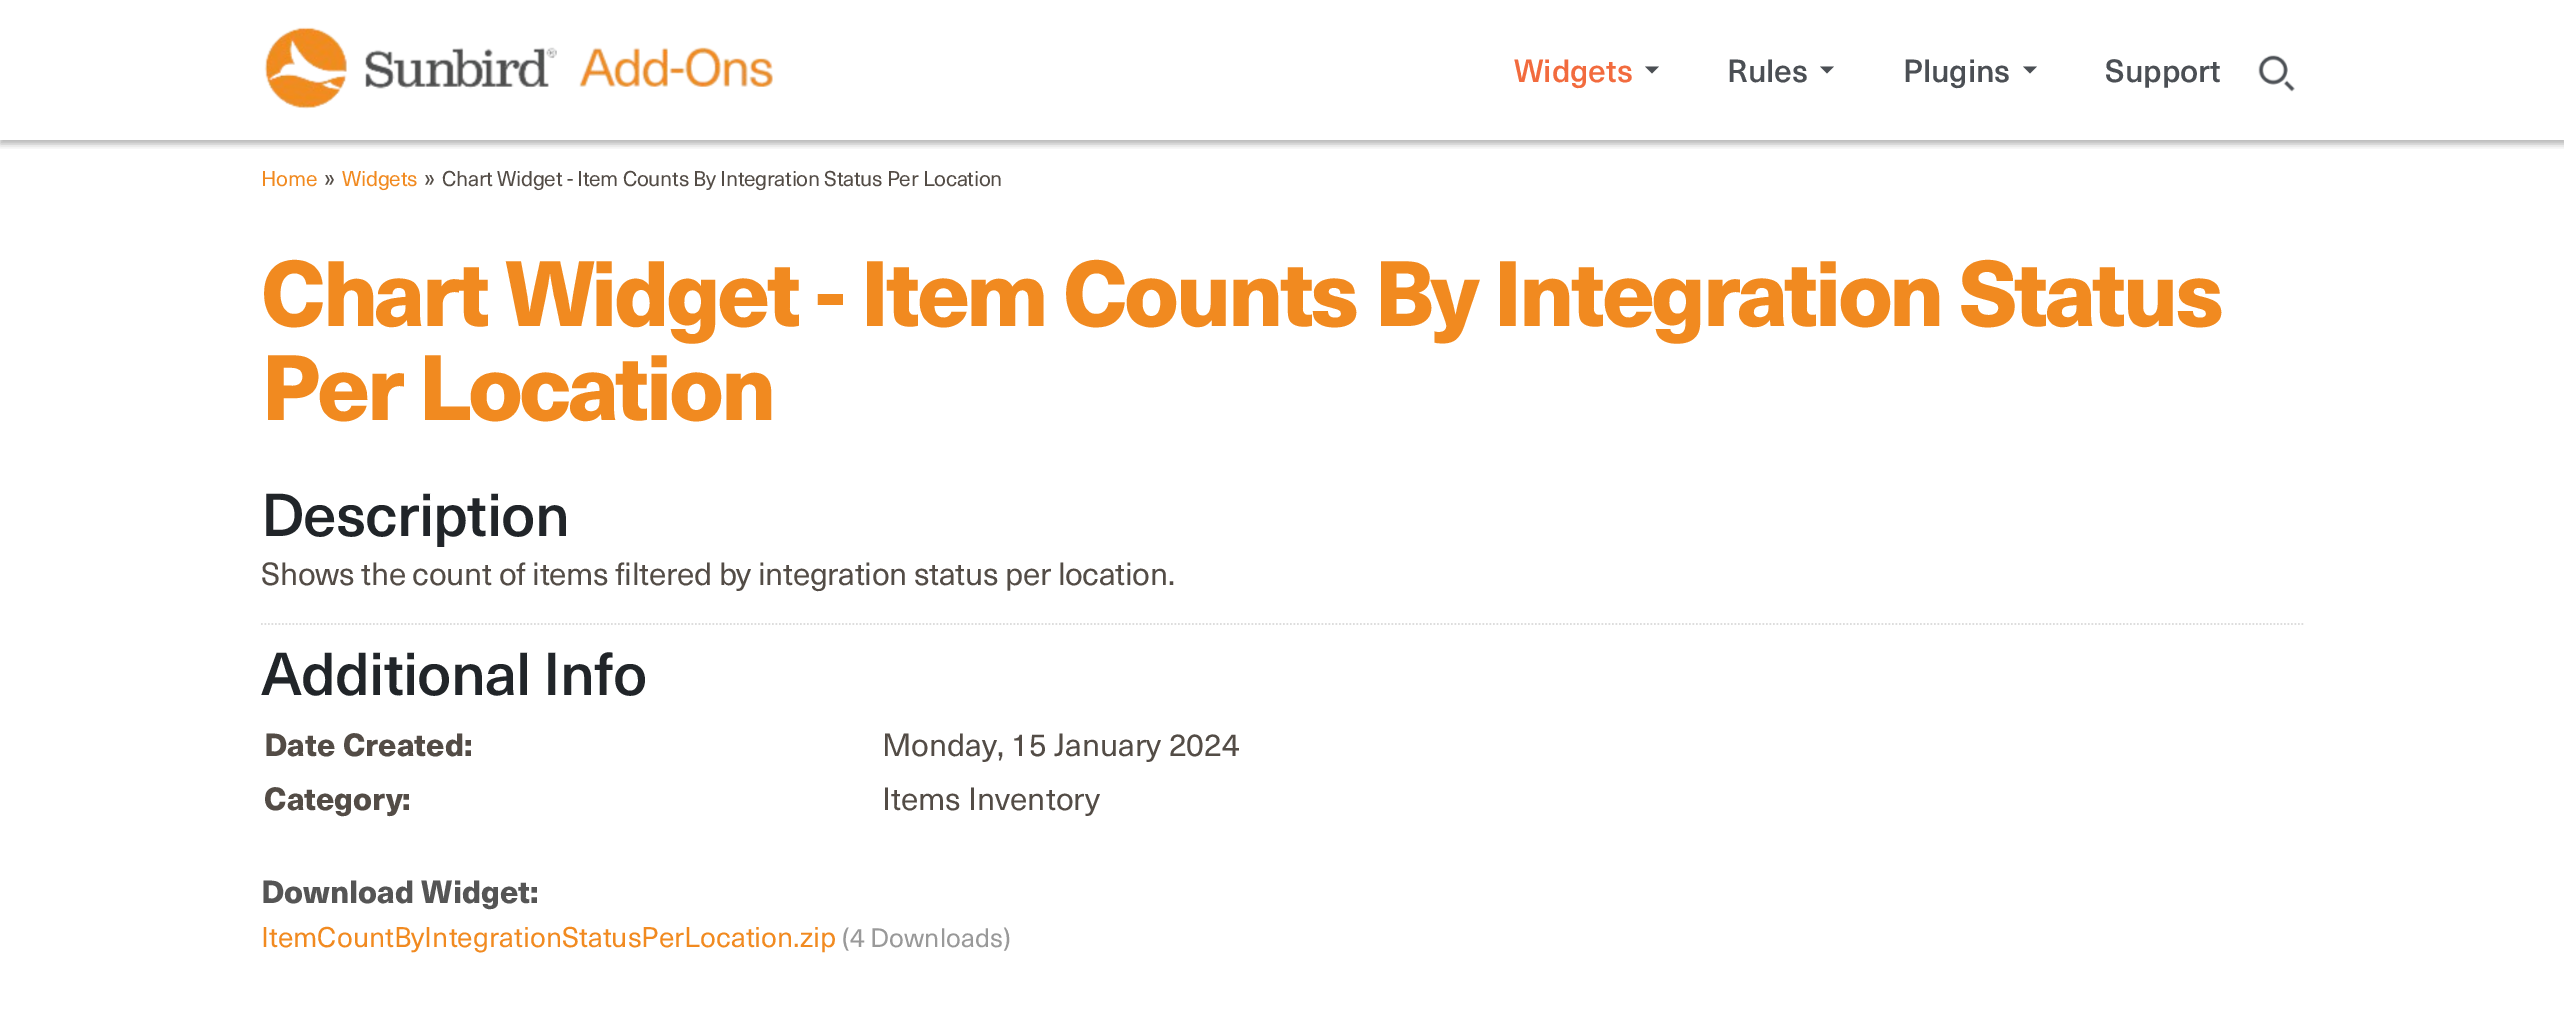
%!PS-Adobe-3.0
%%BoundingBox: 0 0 2564 1012
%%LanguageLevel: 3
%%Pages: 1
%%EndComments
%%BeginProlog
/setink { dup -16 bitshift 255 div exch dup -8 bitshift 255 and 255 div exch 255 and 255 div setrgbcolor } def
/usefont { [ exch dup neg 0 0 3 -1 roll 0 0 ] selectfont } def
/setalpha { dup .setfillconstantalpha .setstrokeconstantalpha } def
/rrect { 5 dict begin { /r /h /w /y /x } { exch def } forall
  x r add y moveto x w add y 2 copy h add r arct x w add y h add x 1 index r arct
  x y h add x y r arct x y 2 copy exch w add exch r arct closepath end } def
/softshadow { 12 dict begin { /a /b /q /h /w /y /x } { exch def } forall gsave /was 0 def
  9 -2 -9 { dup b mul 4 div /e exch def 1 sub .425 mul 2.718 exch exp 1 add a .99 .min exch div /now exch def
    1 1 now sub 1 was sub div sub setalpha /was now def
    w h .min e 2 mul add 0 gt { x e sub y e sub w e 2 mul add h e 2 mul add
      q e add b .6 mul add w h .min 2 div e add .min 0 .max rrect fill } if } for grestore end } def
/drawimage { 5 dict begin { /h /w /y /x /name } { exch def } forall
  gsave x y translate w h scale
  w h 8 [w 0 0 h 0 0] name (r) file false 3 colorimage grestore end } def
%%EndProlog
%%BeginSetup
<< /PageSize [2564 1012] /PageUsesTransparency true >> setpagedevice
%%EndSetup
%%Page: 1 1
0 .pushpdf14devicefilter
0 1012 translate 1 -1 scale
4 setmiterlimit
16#FFFFFF setink
0 0 2564 1012 rectfill
gsave
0 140 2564 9 rectclip
16#000000 setink
0 4 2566 140 0 3.5 0.3 softshadow
grestore
(img1.raw) 264 27 509 82 drawimage
/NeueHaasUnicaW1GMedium-Medium 31.5 usefont
16#F26B3E setink
1514 82 moveto (Widgets) show
16#4B4F54 setink
1645 66.5 moveto 1659 66.5 lineto 1652 73.5 lineto closepath fill
1727 82 moveto (Rules) show
1820 66.5 moveto 1834 66.5 lineto 1827 73.5 lineto closepath fill
1903 82 moveto (Plugins) show
2023 66.5 moveto 2037 66.5 lineto 2030 73.5 lineto closepath fill
2105 82 moveto (Support) show
(img2.raw) 2258 55 37 37 drawimage
/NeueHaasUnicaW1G-Regular 21 usefont
16#F18A20 setink
261 186 moveto -0.3 0 (Home) ashow
/NeueHaasUnicaW1G-Regular 24 usefont
16#534C46 setink
324 186 moveto -0.3 0 (») ashow
/NeueHaasUnicaW1G-Regular 21 usefont
16#F18A20 setink
342 186 moveto -0.3 0 (Widgets) ashow
/NeueHaasUnicaW1G-Regular 24 usefont
16#534C46 setink
424 186 moveto -0.3 0 (») ashow
/NeueHaasUnicaW1G-Regular 21 usefont
442 186 moveto -0.3 0 (Chart Widget - Item Counts By Integration Status Per Location) ashow
/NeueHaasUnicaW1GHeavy-Black 91 usefont
16#F18A20 setink
261 326 moveto -3.5 0 (Chart Widget - Item Counts By Integration Status) ashow
261 420 moveto -3.5 0 (Per Location) ashow
/NeueHaasUnicaW1GMedium-Medium 59.5 usefont
16#212529 setink
261 536 moveto -0.9 0 (Description) ashow
/NeueHaasUnicaW1G-Regular 31.5 usefont
16#534C46 setink
261 585 moveto -0.35 0 (Shows the count of items filtered by integration status per location.) ashow
16#DDDDDD setink
1.8 setlinewidth
[1.75 1.75] 0 setdash
261 624 moveto 2305 624 lineto stroke
/NeueHaasUnicaW1GMedium-Medium 59.5 usefont
16#212529 setink
261 695 moveto -0.9 0 (Additional Info) ashow
/NeueHaasUnicaW1GHeavy-Black 31.5 usefont
16#534C46 setink
264 756 moveto (Date Created:) show
/NeueHaasUnicaW1G-Regular 31.5 usefont
882 756 moveto (Monday, 15 January 2024) show
/NeueHaasUnicaW1GHeavy-Black 31.5 usefont
264 810 moveto (Category:) show
/NeueHaasUnicaW1G-Regular 31.5 usefont
882 810 moveto (Items Inventory) show
/NeueHaasUnicaW1GHeavy-Black 31.5 usefont
16#555555 setink
261 903 moveto (Download Widget:) show
/NeueHaasUnicaW1G-Regular 28 usefont
16#F18A20 setink
261 947 moveto (ItemCountByIntegrationStatusPerLocation.zip) show
/NeueHaasUnicaW1G-Regular 26.25 usefont
16#999999 setink
842 947 moveto (\(4 Downloads\)) show
.poppdf14devicefilter showpage
%%EOF
